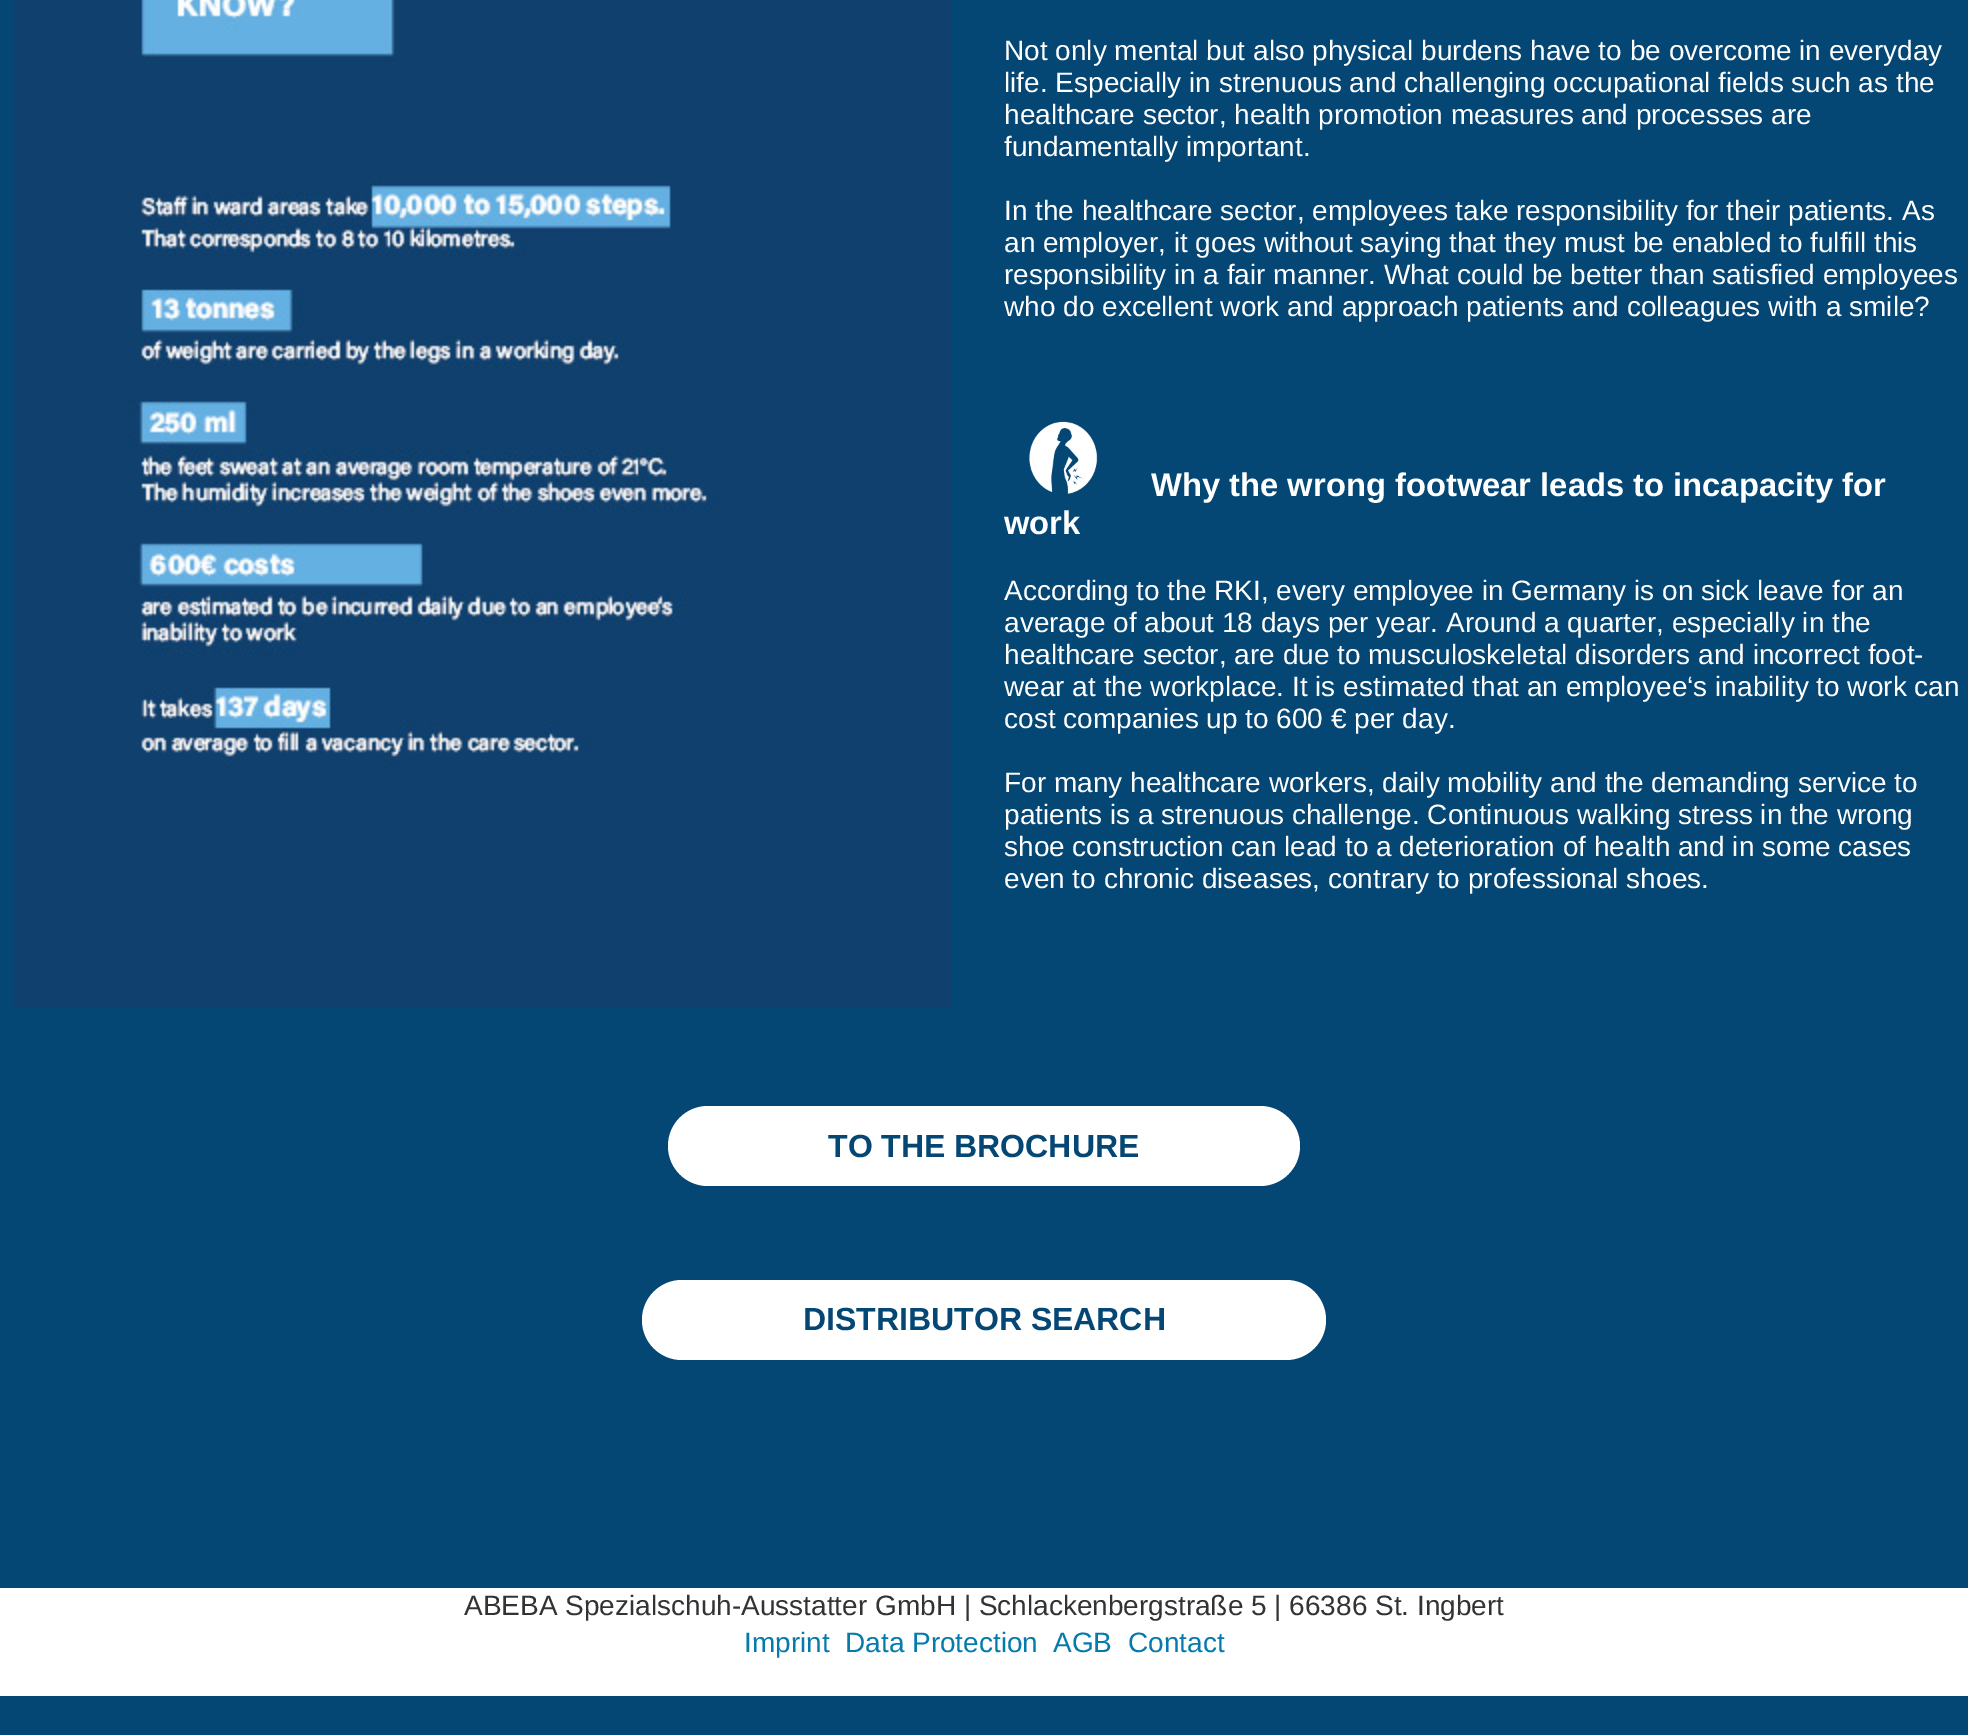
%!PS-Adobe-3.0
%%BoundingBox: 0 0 1968 1735
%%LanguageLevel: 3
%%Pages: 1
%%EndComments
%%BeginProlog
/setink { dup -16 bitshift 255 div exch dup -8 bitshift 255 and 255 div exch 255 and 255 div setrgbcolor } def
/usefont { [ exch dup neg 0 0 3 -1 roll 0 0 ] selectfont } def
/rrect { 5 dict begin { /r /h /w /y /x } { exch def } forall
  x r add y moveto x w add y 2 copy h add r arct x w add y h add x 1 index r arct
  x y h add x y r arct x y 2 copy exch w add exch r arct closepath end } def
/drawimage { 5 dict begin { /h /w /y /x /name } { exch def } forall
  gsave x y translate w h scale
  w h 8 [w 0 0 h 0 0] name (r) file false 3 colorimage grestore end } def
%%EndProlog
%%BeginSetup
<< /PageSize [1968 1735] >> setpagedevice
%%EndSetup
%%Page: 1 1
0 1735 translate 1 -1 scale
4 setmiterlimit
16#044674 setink
0 0 1968 1735 rectfill
(img1.raw) 14 0 938 1008 drawimage
/LiberationSans-Regular 28 usefont
16#FFFFFF setink
[
    [(Not only mental but also physical burdens have to be overcome in everyday) 1004 60]
    [(life. Especially in strenuous and challenging occupational fields such as the) 1004 92]
    [(healthcare sector, health promotion measures and processes are) 1004 124]
    [(fundamentally important.) 1004 156]
    [(In the healthcare sector, employees take responsibility for their patients. As) 1004 220]
    [(an employer, it goes without saying that they must be enabled to fulfill this) 1004 252]
    [(responsibility in a fair manner. What could be better than satisfied employees) 1004 284]
    [(who do excellent work and approach patients and colleagues with a smile?) 1004 316]
] { aload pop moveto show } forall
(img2.raw) 1029 421 69 73 drawimage
/LiberationSans-Bold 32.75 usefont
1151 496 moveto (Why the wrong footwear leads to incapacity for) show
1004 534 moveto (work) show
/LiberationSans-Regular 28 usefont
[
    [(According to the RKI, every employee in Germany is on sick leave for an) 1004 600]
    [(average of about 18 days per year. Around a quarter, especially in the) 1004 632]
    [(healthcare sector, are due to musculoskeletal disorders and incorrect foot-) 1004 664]
    [(wear at the workplace. It is estimated that an employee‘s inability to work can) 1004 696]
    [(cost companies up to 600 € per day.) 1004 728]
    [(For many healthcare workers, daily mobility and the demanding service to) 1004 792]
    [(patients is a strenuous challenge. Continuous walking stress in the wrong) 1004 824]
    [(shoe construction can lead to a deterioration of health and in some cases) 1004 856]
    [(even to chronic diseases, contrary to professional shoes.) 1004 888]
] { aload pop moveto show } forall
668 1106 632 80 40 rrect fill
/LiberationSans-Bold 32 usefont
16#044674 setink
828 1157 moveto (TO THE BROCHURE) show
16#FFFFFF setink
642 1280 684 80 40 rrect fill
16#044674 setink
803 1330 moveto (DISTRIBUTOR SEARCH) show
16#FFFFFF setink
0 1588 1968 108 rectfill
/LiberationSans-Regular 28 usefont
16#333333 setink
464 1615 moveto (ABEBA Spezialschuh-Ausstatter GmbH | Schlackenbergstraße 5 | 66386 St. Ingbert) show
16#057BAD setink
[
    [(Imprint) 744 1652]
    [(Data Protection) 845 1652]
    [(AGB) 1053 1652]
    [(Contact) 1128 1652]
] { aload pop moveto show } forall
showpage
%%EOF
